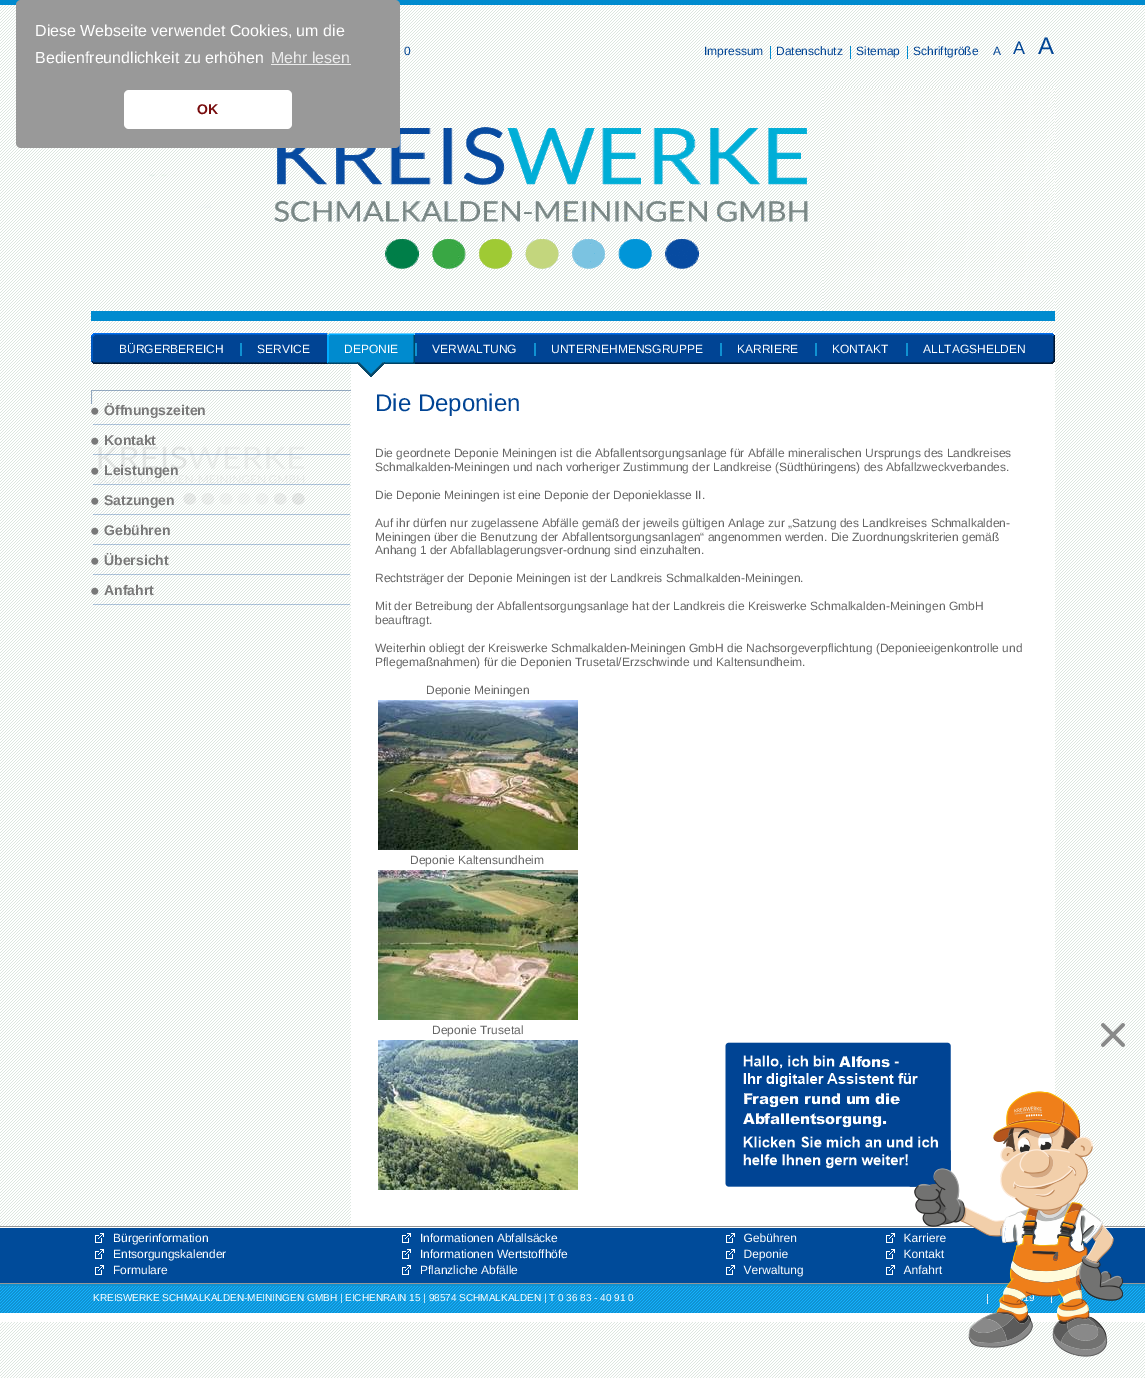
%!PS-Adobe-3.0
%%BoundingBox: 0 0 1145 1378
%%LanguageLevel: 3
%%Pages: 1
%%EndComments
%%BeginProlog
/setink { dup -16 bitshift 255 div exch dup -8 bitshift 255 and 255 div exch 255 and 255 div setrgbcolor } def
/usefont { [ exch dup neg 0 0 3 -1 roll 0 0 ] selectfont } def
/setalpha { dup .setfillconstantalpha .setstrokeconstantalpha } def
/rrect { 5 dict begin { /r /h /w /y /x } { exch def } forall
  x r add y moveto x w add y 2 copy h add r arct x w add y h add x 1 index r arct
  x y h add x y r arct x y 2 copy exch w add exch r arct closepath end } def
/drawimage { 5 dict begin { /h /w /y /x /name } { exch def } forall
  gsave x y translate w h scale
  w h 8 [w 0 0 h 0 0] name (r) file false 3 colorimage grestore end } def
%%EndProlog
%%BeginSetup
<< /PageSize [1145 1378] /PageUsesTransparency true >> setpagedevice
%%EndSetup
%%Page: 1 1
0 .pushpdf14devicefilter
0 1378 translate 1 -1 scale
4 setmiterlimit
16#FFFFFF setink
0 0 1145 1378 rectfill
(img1.raw) 0 5 1145 1373 drawimage
16#008BCF setink
0 0 1145 5 rectfill
(img3.raw) 274 127 534 142 drawimage
16#999999 setink
16 0 384 148 5 rrect fill
/LiberationSans-Regular 16 usefont
16#FFFFFF setink
35 36 moveto (Diese Webseite verwendet Cookies, um die) show
35 63 moveto (Bedienfreundlichkeit zu erhöhen) show
16#EBEBEB setink
271 63 moveto (Mehr lesen) show
271 64 80 1 rectfill
16#FFFFFF setink
124 90 168 39 5 rrect fill
/LiberationSans-Bold 14 usefont
16#780C0D setink
197 114 moveto (OK) show
16#008BCF setink
91 311 964 10 rectfill
/LiberationSans-Regular 12 usefont
16#004494 setink
404 55 moveto (0) show
704 55 moveto (Impressum) show
16#008BCF setink
770 46 1 13 rectfill
16#004494 setink
776 55 moveto (Datenschutz) show
16#008BCF setink
850 46 1 13 rectfill
16#004494 setink
856 55 moveto (Sitemap) show
16#008BCF setink
907 46 1 13 rectfill
16#004494 setink
913 55 moveto (Schriftgröße) show
993 55 moveto (A) show
/LiberationSans-Regular 18 usefont
1013 54 moveto (A) show
/LiberationSans-Regular 24 usefont
1038 54 moveto (A) show
(img2.raw) 149 174 65 34 drawimage
(img4.raw) 823 87 232 224 drawimage
16#FFFFFF setink
351 333 704 893 rectfill
(img5.raw) 91 333 964 31 drawimage
/LiberationSans-Regular 12 usefont
119 353 moveto (BÜRGERBEREICH) show
16#1092D2 setink
240 343 2 13 rectfill
16#FFFFFF setink
257 353 moveto (SERVICE) show
(img6.raw) 397 333 18 31 drawimage
(img7.raw) 327 333 70 31 drawimage
344 353 moveto (DEPONIE) show
(img8.raw) 357 362 28 15 drawimage
16#1092D2 setink
415 343 2 13 rectfill
16#FFFFFF setink
432 353 moveto (VERWALTUNG) show
16#1092D2 setink
534 343 2 13 rectfill
16#FFFFFF setink
551 353 moveto (UNTERNEHMENSGRUPPE) show
16#1092D2 setink
720 343 2 13 rectfill
16#FFFFFF setink
737 353 moveto (KARRIERE) show
16#1092D2 setink
815 343 2 13 rectfill
16#FFFFFF setink
832 353 moveto (KONTAKT) show
16#1092D2 setink
906 343 2 13 rectfill
16#FFFFFF setink
923 353 moveto (ALLTAGSHELDEN) show
(img9.raw) 98 446 207 59 drawimage
(img10.raw) 91 390 260 14 drawimage
0.3 setalpha
16#004394 setink
93 424 257 1 rectfill
1 setalpha
(img11.raw) 91 407 8 8 drawimage
/LiberationSans-Bold 14 usefont
16#787878 setink
104 415 moveto (Öffnungszeiten) show
0.3 setalpha
16#004394 setink
93 454 257 1 rectfill
1 setalpha
(img11.raw) 91 437 8 8 drawimage
16#787878 setink
104 445 moveto (Kontakt) show
0.3 setalpha
16#004394 setink
93 484 257 1 rectfill
1 setalpha
(img12.raw) 91 467 8 8 drawimage
16#787878 setink
104 475 moveto (Leistungen) show
0.3 setalpha
16#004394 setink
93 514 257 1 rectfill
1 setalpha
(img11.raw) 91 497 8 8 drawimage
16#787878 setink
104 505 moveto (Satzungen) show
0.3 setalpha
16#004394 setink
93 544 257 1 rectfill
1 setalpha
(img11.raw) 91 527 8 8 drawimage
16#787878 setink
104 535 moveto (Gebühren) show
0.3 setalpha
16#004394 setink
93 574 257 1 rectfill
1 setalpha
(img11.raw) 91 557 8 8 drawimage
16#787878 setink
104 565 moveto (Übersicht) show
0.3 setalpha
16#004394 setink
93 604 257 1 rectfill
1 setalpha
(img11.raw) 91 587 8 8 drawimage
16#787878 setink
104 595 moveto (Anfahrt) show
/LiberationSans-Regular 24 usefont
16#004494 setink
375 411 moveto (Die Deponien) show
/LiberationSans-Regular 12 usefont
16#656565 setink
[
    [(Die geordnete Deponie Meiningen ist die Abfallentsorgungsanlage für Abfälle mineralischen Ursprungs des Landkreises) 375 457]
    [(Schmalkalden-Meiningen und nach vorheriger Zustimmung der Landkreise \(Südthüringens\) des Abfallzweckverbandes.) 375 471]
    [(Die Deponie Meiningen ist eine Deponie der Deponieklasse II.) 375 499]
    [(Auf ihr dürfen nur zugelassene Abfälle gemäß der jeweils gültigen Anlage zur „Satzung des Landkreises Schmalkalden-) 375 527]
    [(Meiningen über die Benutzung der Abfallentsorgungsanlagen“ angenommen werden. Die Zuordnungskriterien gemäß) 375 541]
    [(Anhang 1 der Abfallablagerungsver-ordnung sind einzuhalten.) 375 554]
    [(Rechtsträger der Deponie Meiningen ist der Landkreis Schmalkalden-Meiningen.) 375 582]
    [(Mit der Betreibung der Abfallentsorgungsanlage hat der Landkreis die Kreiswerke Schmalkalden-Meiningen GmbH) 375 610]
    [(beauftragt.) 375 624]
    [(Weiterhin obliegt der Kreiswerke Schmalkalden-Meiningen GmbH die Nachsorgeverpflichtung \(Deponieeigenkontrolle und) 375 652]
    [(Pflegemaßnahmen\) für die Deponien Trusetal/Erzschwinde und Kaltensundheim.) 375 666]
    [(Deponie Meiningen) 426 694]
] { aload pop moveto show } forall
(img13.raw) 378 700 200 150 drawimage
410 864 moveto (Deponie Kaltensundheim) show
(img14.raw) 378 870 200 150 drawimage
432 1034 moveto (Deponie Trusetal) show
(img15.raw) 378 1040 200 150 drawimage
(img16.raw) 0 1226 1145 57 drawimage
(img17.raw) 95 1233 9 10 drawimage
16#FFFFFF setink
113 1242 moveto (Bürgerinformation) show
(img17.raw) 95 1249 9 10 drawimage
113 1258 moveto (Entsorgungskalender) show
(img17.raw) 95 1265 9 10 drawimage
113 1274 moveto (Formulare) show
(img17.raw) 402 1233 9 10 drawimage
420 1242 moveto (Informationen Abfallsäcke) show
(img17.raw) 402 1249 9 10 drawimage
420 1258 moveto (Informationen Wertstoffhöfe) show
(img17.raw) 402 1265 9 10 drawimage
420 1274 moveto (Pflanzliche Abfälle) show
(img17.raw) 726 1233 9 10 drawimage
744 1242 moveto (Gebühren) show
(img17.raw) 726 1249 9 10 drawimage
744 1258 moveto (Deponie) show
(img17.raw) 726 1265 9 10 drawimage
744 1274 moveto (Verwaltung) show
(img17.raw) 886 1233 9 10 drawimage
904 1242 moveto (Karriere) show
(img17.raw) 886 1249 9 10 drawimage
904 1258 moveto (Kontakt) show
(img17.raw) 886 1265 9 10 drawimage
904 1274 moveto (Anfahrt) show
(img18.raw) 0 1283 1145 39 drawimage
/LiberationSans-Regular 10 usefont
93 1301 moveto (KREISWERKE SCHMALKALDEN-MEININGEN GMBH | EICHENRAIN 15 | 98574 SCHMALKALDEN | T 0 36 83 - 40 91 0) show
16#E6ECF4 setink
987 1294 1 10 rectfill
1051 1295 1 8 rectfill
(img20.raw) 725 1042 399 315 drawimage
(img19.raw) 1101 1023 24 24 drawimage
.poppdf14devicefilter showpage
%%EOF
